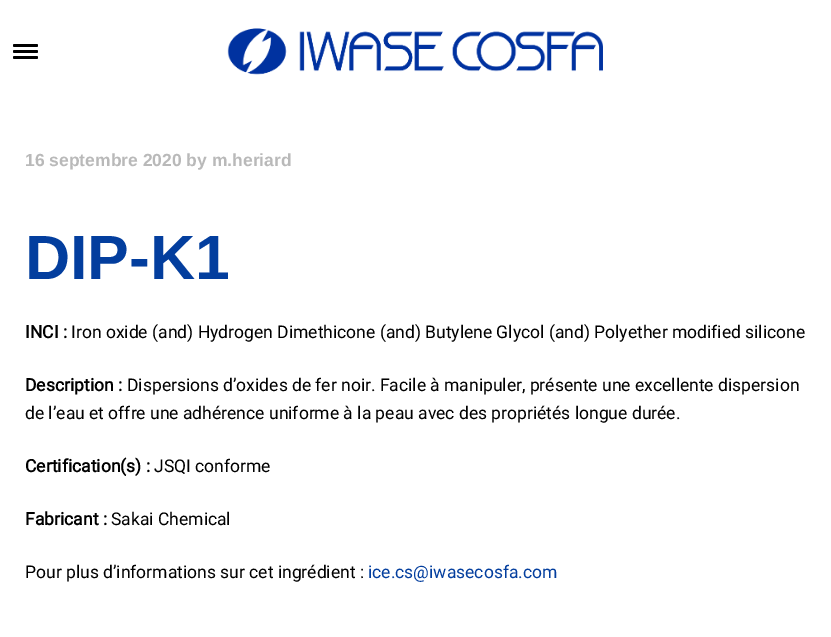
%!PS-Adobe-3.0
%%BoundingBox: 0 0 831 637
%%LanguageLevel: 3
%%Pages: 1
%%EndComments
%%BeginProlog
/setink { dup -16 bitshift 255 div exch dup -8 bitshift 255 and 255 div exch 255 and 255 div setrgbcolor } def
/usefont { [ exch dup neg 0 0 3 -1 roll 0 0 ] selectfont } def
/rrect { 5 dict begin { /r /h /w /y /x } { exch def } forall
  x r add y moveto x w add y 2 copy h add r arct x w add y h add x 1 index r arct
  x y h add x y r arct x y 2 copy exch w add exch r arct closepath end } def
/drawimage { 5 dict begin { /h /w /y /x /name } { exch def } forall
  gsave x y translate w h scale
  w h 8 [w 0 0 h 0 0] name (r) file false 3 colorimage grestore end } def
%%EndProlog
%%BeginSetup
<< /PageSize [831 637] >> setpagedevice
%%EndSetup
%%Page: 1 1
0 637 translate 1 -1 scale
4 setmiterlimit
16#FFFFFF setink
0 0 831 637 rectfill
16#000000 setink
13 44 25 3 1.5 rrect fill
13 50 25 3 1.5 rrect fill
13 56 25 3 1.5 rrect fill
(img1.raw) 227 28 376 47 drawimage
/Arimo-Bold 17.5 usefont
16#B9B9B9 setink
25 166 moveto (16 septembre 2020 by m.heriard) show
/Arimo-Bold 62.5 usefont
16#033E9E setink
25 279 moveto (DIP-K1) show
/Roboto-Bold 17.5 usefont
16#000000 setink
25 338 moveto (INCI :) show
/Roboto-Regular 17.5 usefont
71 338 moveto (Iron oxide \(and\) Hydrogen Dimethicone \(and\) Butylene Glycol \(and\) Polyether modified silicone) show
/Roboto-Bold 17.5 usefont
25 391 moveto (Description :) show
/Roboto-Regular 17.5 usefont
127 391 moveto (Dispersions d’oxides de fer noir. Facile à manipuler, présente une excellente dispersion) show
25 419 moveto (de l’eau et offre une adhérence uniforme à la peau avec des propriétés longue durée.) show
/Roboto-Bold 17.5 usefont
25 472 moveto (Certification\(s\) :) show
/Roboto-Regular 17.5 usefont
154 472 moveto (JSQI conforme) show
/Roboto-Bold 17.5 usefont
25 525 moveto (Fabricant :) show
/Roboto-Regular 17.5 usefont
111 525 moveto (Sakai Chemical) show
25 578 moveto (Pour plus d’informations sur cet ingrédient :) show
16#033E9E setink
368 578 moveto (ice.cs@iwasecosfa.com) show
showpage
%%EOF
